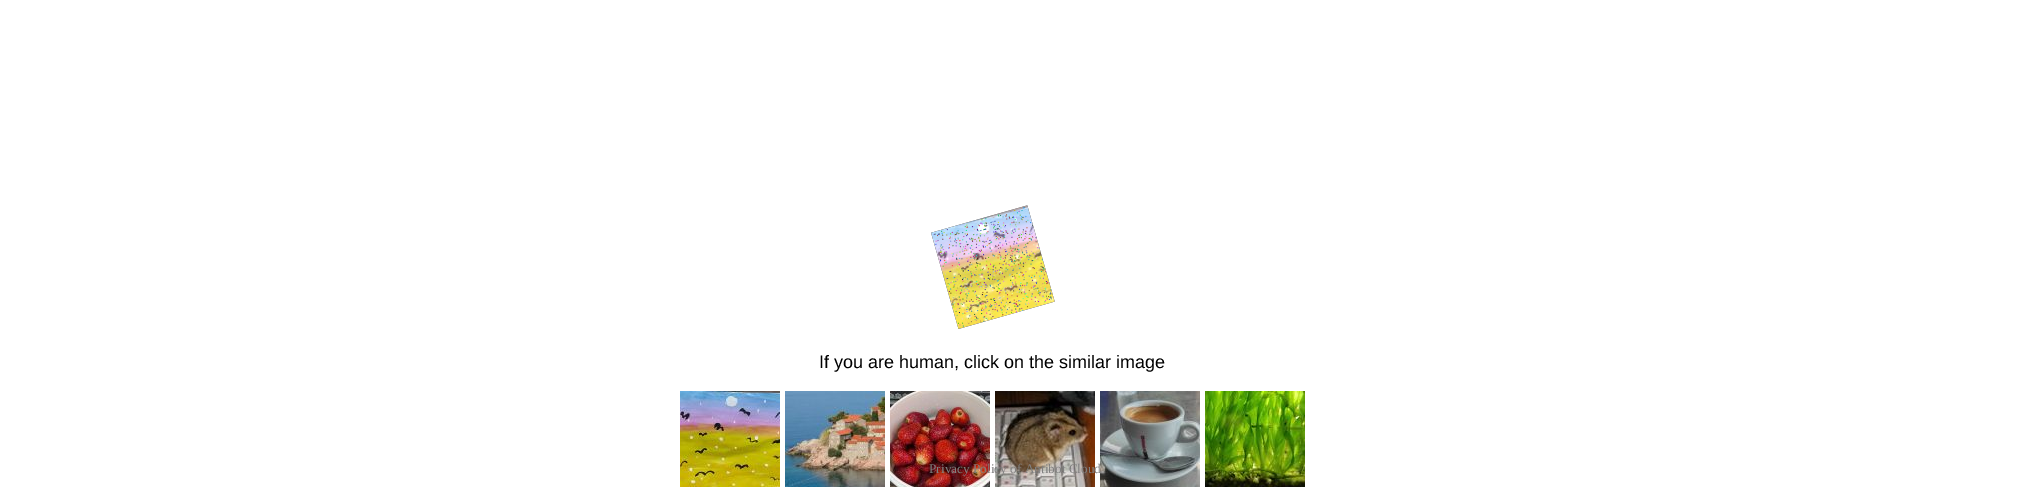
%!PS-Adobe-3.0
%%BoundingBox: 0 0 2030 487
%%LanguageLevel: 3
%%Pages: 1
%%EndComments
%%BeginProlog
/setink { dup -16 bitshift 255 div exch dup -8 bitshift 255 and 255 div exch 255 and 255 div setrgbcolor } def
/usefont { [ exch dup neg 0 0 3 -1 roll 0 0 ] selectfont } def
/drawimage { 5 dict begin { /h /w /y /x /name } { exch def } forall
  gsave x y translate w h scale
  w h 8 [w 0 0 h 0 0] name (r) file false 3 colorimage grestore end } def
%%EndProlog
%%BeginSetup
<< /PageSize [2030 487] >> setpagedevice
%%EndSetup
%%Page: 1 1
0 487 translate 1 -1 scale
4 setmiterlimit
16#FFFFFF setink
0 0 2030 487 rectfill
(img1.raw) 931 205 124 124 drawimage
/LiberationSans-Regular 18 usefont
16#000000 setink
819 368 moveto (If you are human, click on the similar image) show
(img2.raw) 680 391 100 96 drawimage
(img3.raw) 785 391 100 96 drawimage
(img4.raw) 890 391 100 96 drawimage
(img5.raw) 995 391 100 96 drawimage
(img6.raw) 1100 391 100 96 drawimage
(img7.raw) 1205 391 100 96 drawimage
/LiberationSerif-Regular 13.3 usefont
16#808080 setink
929 473 moveto (Privacy Policy of Antibot Cloud) show
showpage
%%EOF
